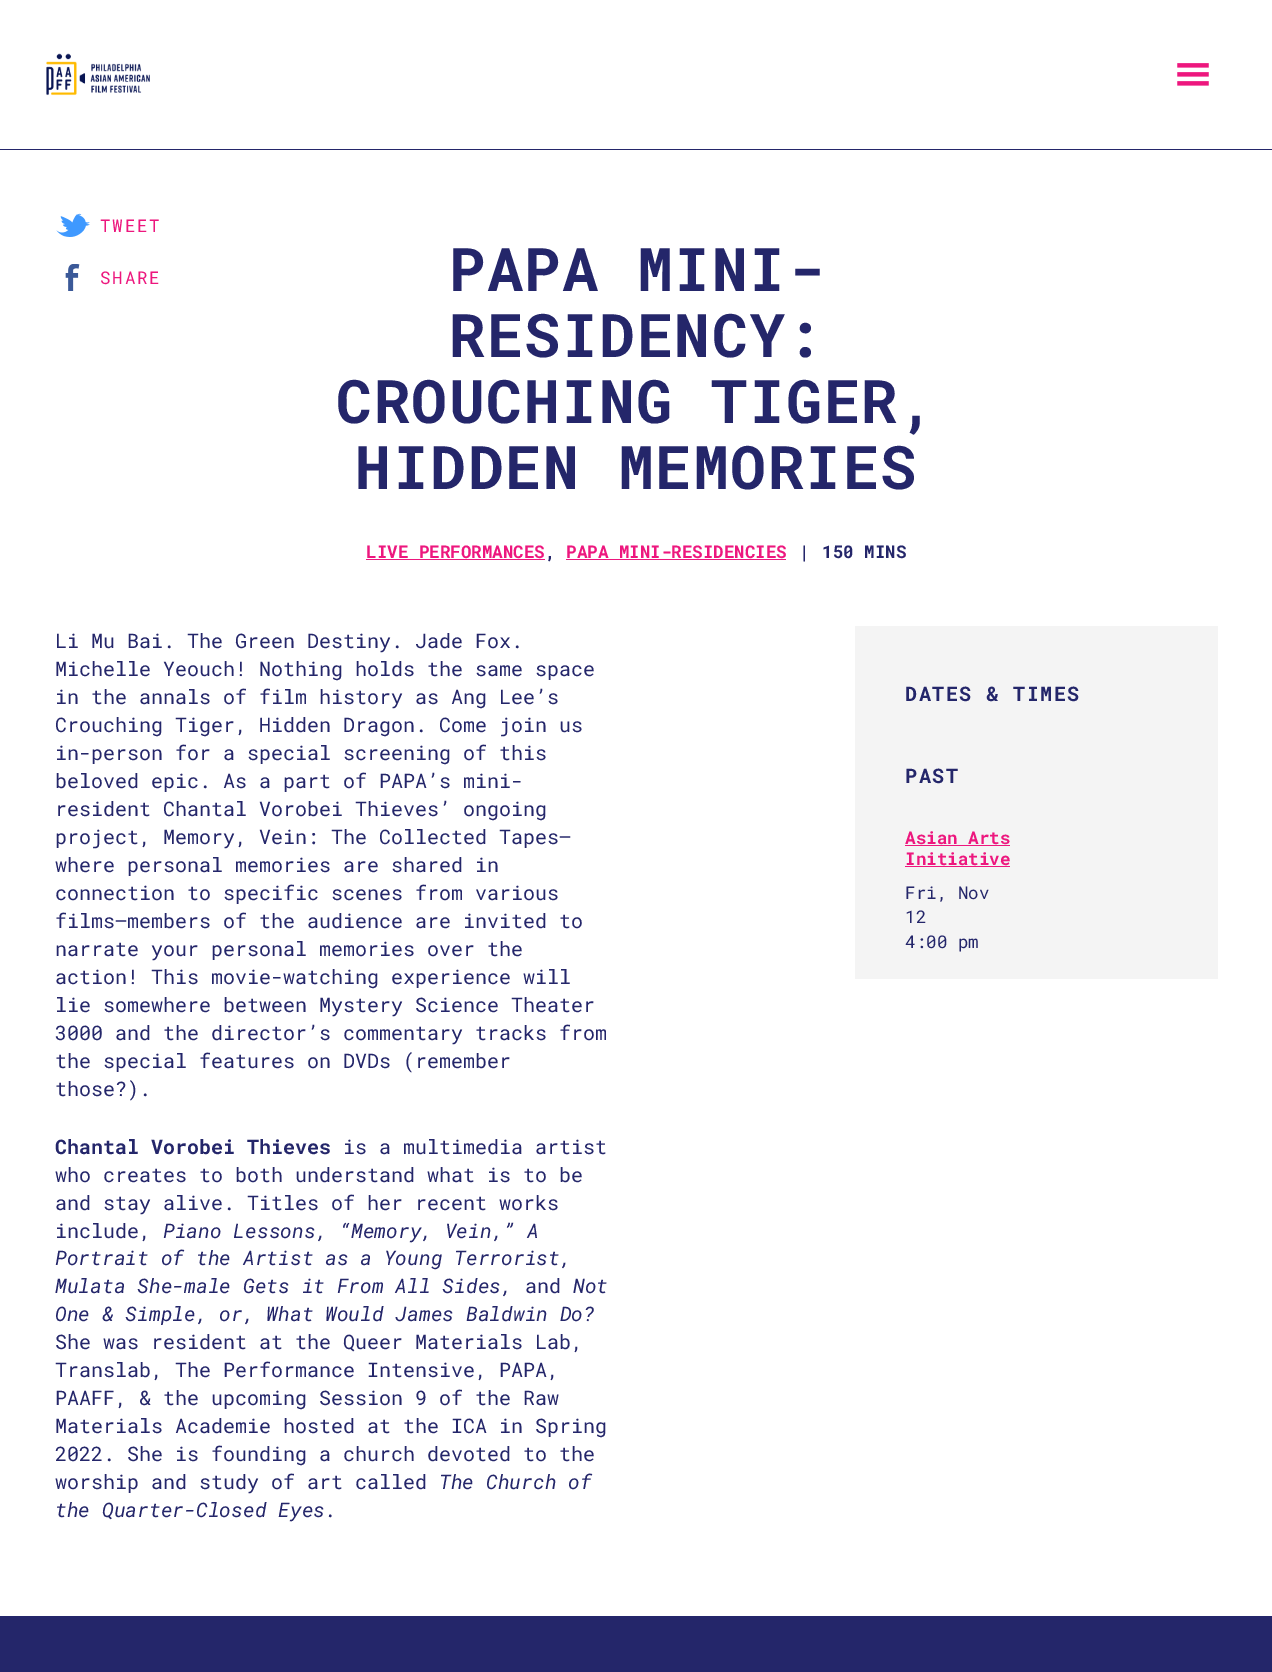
%!PS-Adobe-3.0
%%BoundingBox: 0 0 1272 1672
%%LanguageLevel: 3
%%Pages: 1
%%EndComments
%%BeginProlog
/setink { dup -16 bitshift 255 div exch dup -8 bitshift 255 and 255 div exch 255 and 255 div setrgbcolor } def
/usefont { [ exch dup neg 0 0 3 -1 roll 0 0 ] selectfont } def
/drawimage { 5 dict begin { /h /w /y /x /name } { exch def } forall
  gsave x y translate w h scale
  w h 8 [w 0 0 h 0 0] name (r) file false 3 colorimage grestore end } def
%%EndProlog
%%BeginSetup
<< /PageSize [1272 1672] >> setpagedevice
%%EndSetup
%%Page: 1 1
0 1672 translate 1 -1 scale
4 setmiterlimit
16#FFFFFF setink
0 0 1272 1672 rectfill
16#24266A setink
0 149 1272 1 rectfill
(img1.raw) 46 53 104 43 drawimage
(img2.raw) 1177 63 32 23 drawimage
(img3.raw) 56 213 34 24 drawimage
/RobotoMono-Regular 17.5 usefont
16#ED177E setink
100 232 moveto 1.75 0 (TWEET) ashow
(img4.raw) 65 264 15 27 drawimage
100 284 moveto 1.75 0 (SHARE) ashow
/RobotoMono-Bold 60 usefont
16#24266A setink
449 291 moveto 1.5 0 (PAPA MINI-) ashow
449 357 moveto 1.5 0 (RESIDENCY:) ashow
336 423 moveto 1.5 0 (CROUCHING TIGER,) ashow
355 489 moveto 1.5 0 (HIDDEN MEMORIES) ashow
/RobotoMono-Bold 17.5 usefont
16#ED177E setink
366 558 moveto (LIVE PERFORMANCES) show
366 559 179 1 rectfill
16#24266A setink
545 558 moveto (,) show
16#ED177E setink
566 558 moveto (PAPA MINI-RESIDENCIES) show
566 559 220 1 rectfill
16#24266A setink
799 558 moveto (|) show
822 558 moveto (150 MINS) show
/RobotoMono-Regular 20 usefont
[
    [(Li Mu Bai. The Green Destiny. Jade Fox.) 55 648]
    [(Michelle Yeouch! Nothing holds the same space) 55 676]
    [(in the annals of film history as Ang Lee’s) 55 704]
    [(Crouching Tiger, Hidden Dragon. Come join us) 55 732]
    [(in-person for a special screening of this) 55 760]
    [(beloved epic. As a part of PAPA’s mini-) 55 788]
    [(resident Chantal Vorobei Thieves’ ongoing) 55 816]
    [(project, Memory, Vein: The Collected Tapes—) 55 844]
    [(where personal memories are shared in) 55 872]
    [(connection to specific scenes from various) 55 900]
    [(films—members of the audience are invited to) 55 928]
    [(narrate your personal memories over the) 55 956]
    [(action! This movie-watching experience will) 55 984]
    [(lie somewhere between Mystery Science Theater) 55 1012]
    [(3000 and the director’s commentary tracks from) 55 1040]
    [(the special features on DVDs \(remember) 55 1068]
    [(those?\).) 55 1096]
] { aload pop moveto show } forall
/RobotoMono-Bold 20 usefont
55 1154 moveto (Chantal Vorobei Thieves) show
/RobotoMono-Regular 20 usefont
[
    [(is a multimedia artist) 343 1154]
    [(who creates to both understand what is to be) 55 1182]
    [(and stay alive. Titles of her recent works) 55 1210]
    [(include,) 55 1238]
] { aload pop moveto show } forall
/RobotoMono-Italic 20 usefont
[
    [(Piano Lessons, “Memory, Vein,” A) 163 1238]
    [(Portrait of the Artist as a Young Terrorist,) 55 1265]
    [(Mulata She-male Gets it From All Sides,) 55 1293]
] { aload pop moveto show } forall
/RobotoMono-Regular 20 usefont
525 1293 moveto (and) show
/RobotoMono-Italic 20 usefont
573 1293 moveto (Not) show
55 1321 moveto (One & Simple, or, What Would James Baldwin Do?) show
/RobotoMono-Regular 20 usefont
[
    [(She was resident at the Queer Materials Lab,) 55 1349]
    [(Translab, The Performance Intensive, PAPA,) 55 1377]
    [(PAAFF, & the upcoming Session 9 of the Raw) 55 1405]
    [(Materials Academie hosted at the ICA in Spring) 55 1433]
    [(2022. She is founding a church devoted to the) 55 1461]
    [(worship and study of art called) 55 1489]
] { aload pop moveto show } forall
/RobotoMono-Italic 20 usefont
439 1489 moveto (The Church of) show
55 1517 moveto (the Quarter-Closed Eyes.) show
16#F4F4F4 setink
855 626 363 353 rectfill
/RobotoMono-Bold 20 usefont
16#24266A setink
905 701 moveto 1.5 0 (DATES & TIMES) ashow
905 783 moveto 1.5 0 (PAST) ashow
/RobotoMono-Bold 17.5 usefont
16#ED177E setink
905 844 moveto (Asian Arts) show
905 845 105 1 rectfill
905 865 moveto (Initiative) show
905 866 105 1 rectfill
/RobotoMono-Regular 17.5 usefont
16#24266A setink
[
    [(Fri, Nov) 905 899]
    [(12) 905 923]
    [(4:00 pm) 905 948]
] { aload pop moveto show } forall
0 1616 1272 56 rectfill
showpage
%%EOF
